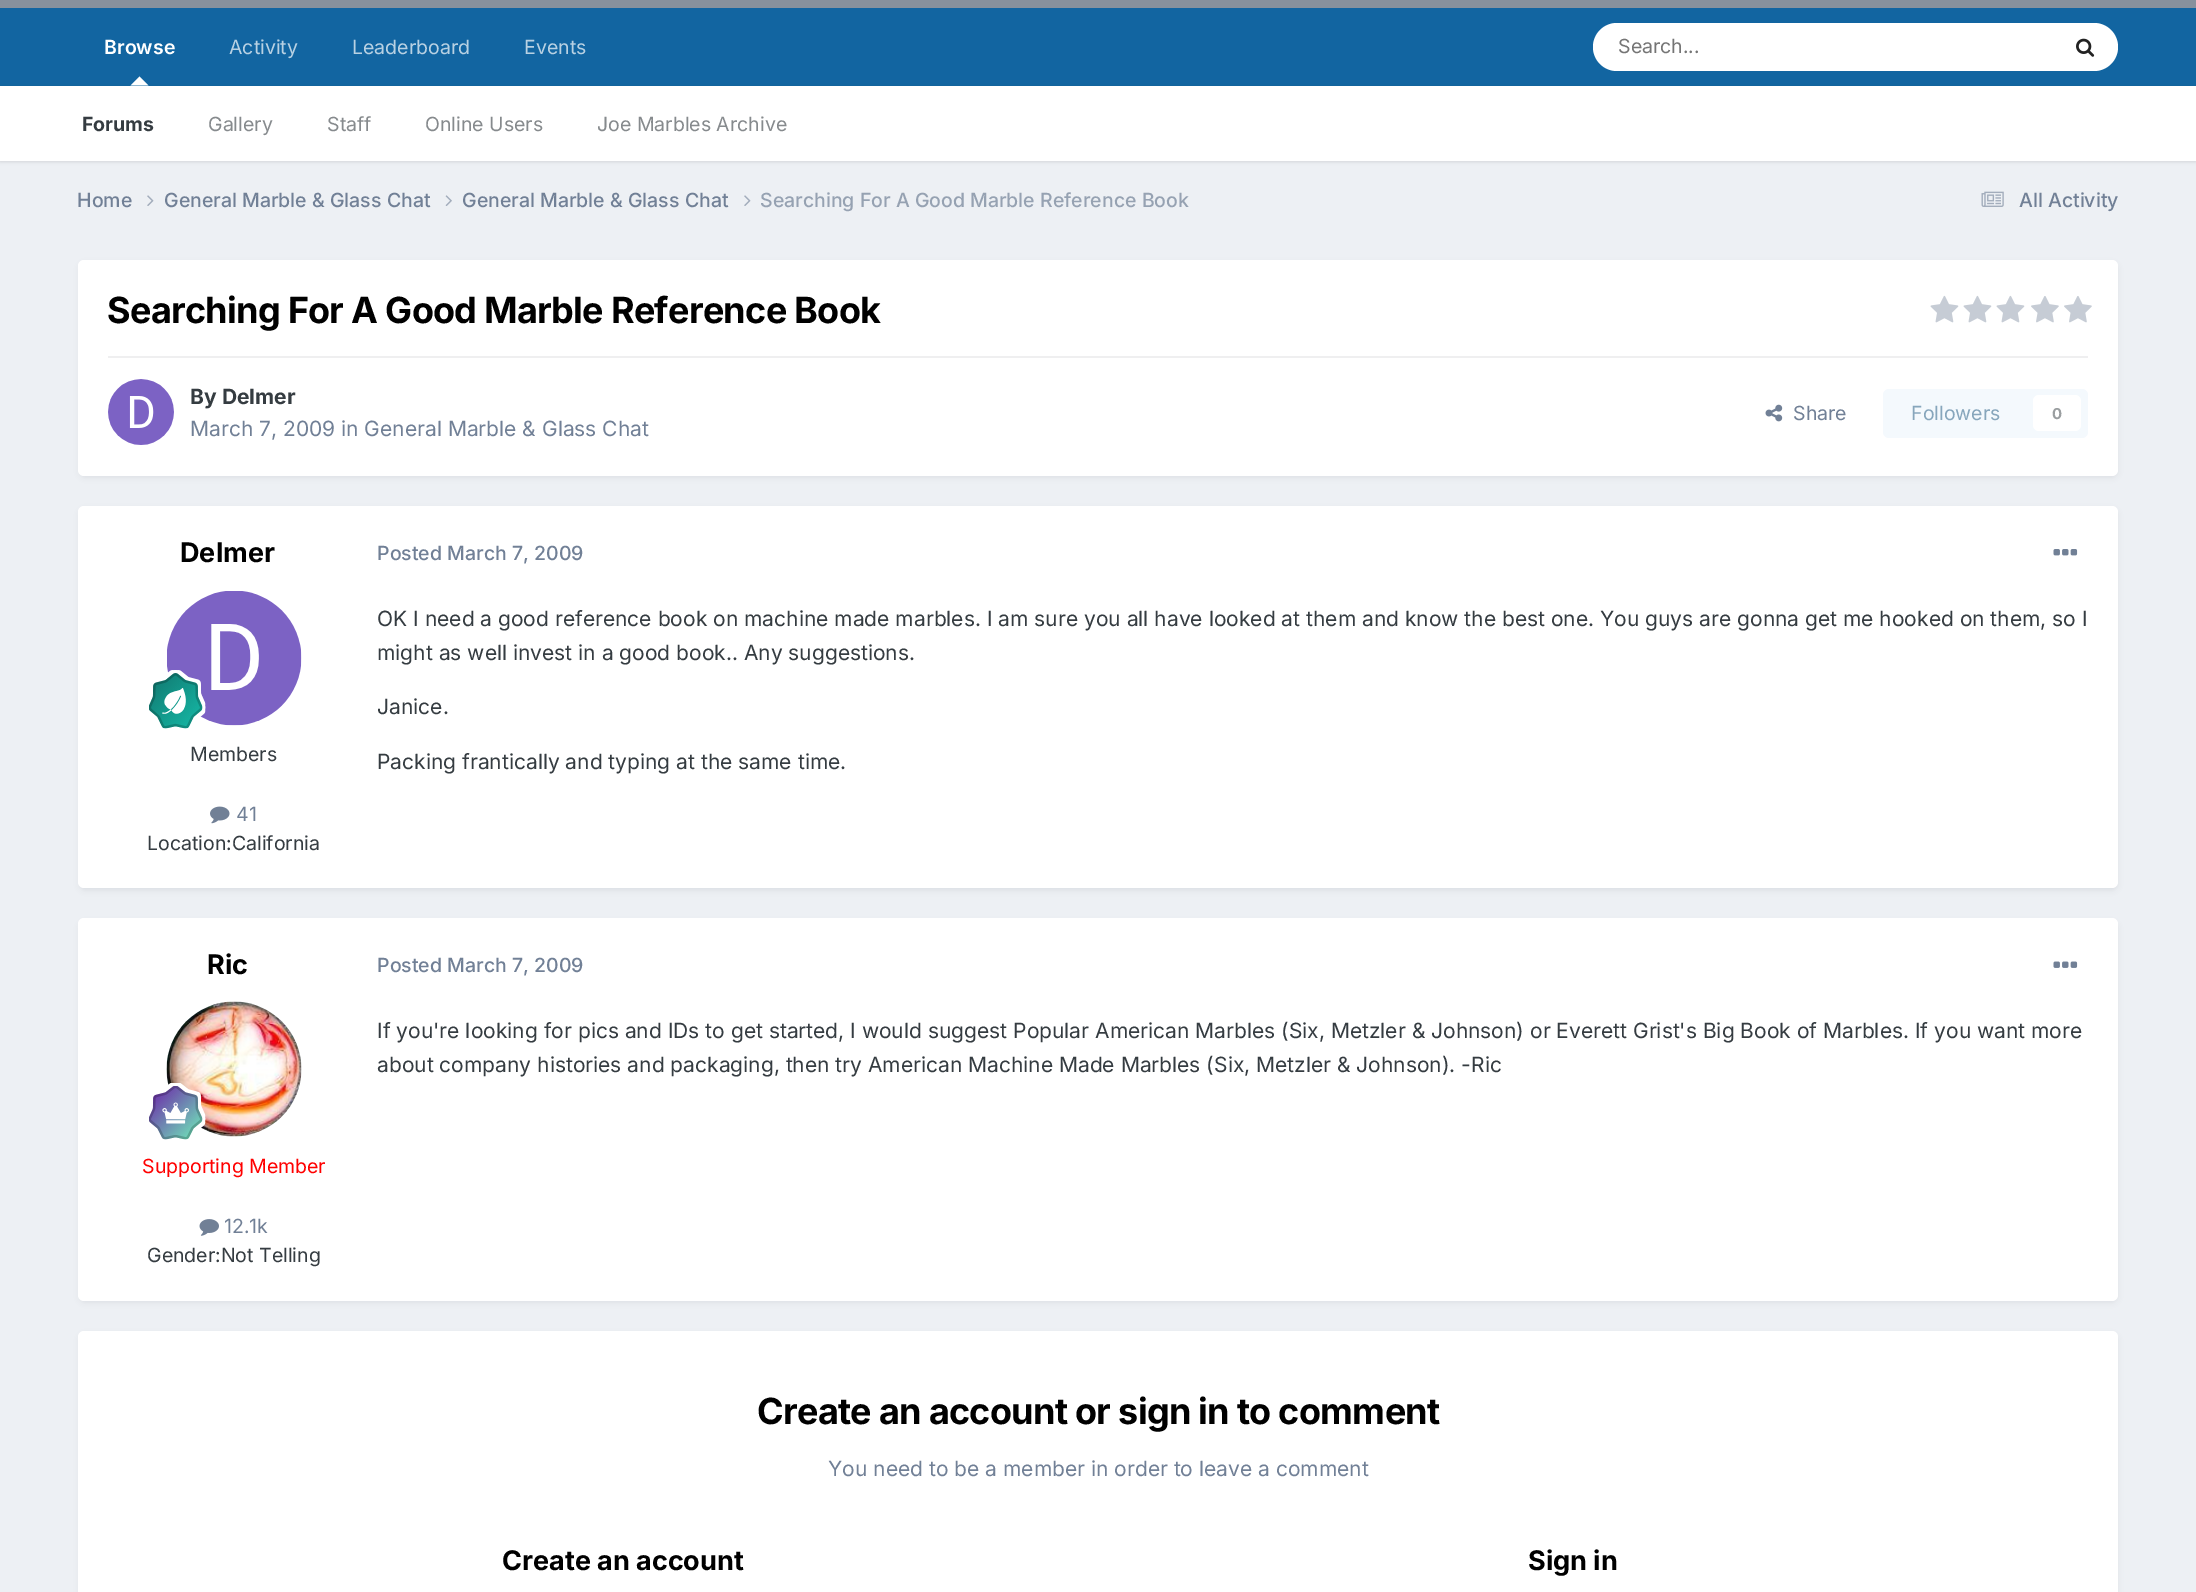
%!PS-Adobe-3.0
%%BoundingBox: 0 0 2196 1592
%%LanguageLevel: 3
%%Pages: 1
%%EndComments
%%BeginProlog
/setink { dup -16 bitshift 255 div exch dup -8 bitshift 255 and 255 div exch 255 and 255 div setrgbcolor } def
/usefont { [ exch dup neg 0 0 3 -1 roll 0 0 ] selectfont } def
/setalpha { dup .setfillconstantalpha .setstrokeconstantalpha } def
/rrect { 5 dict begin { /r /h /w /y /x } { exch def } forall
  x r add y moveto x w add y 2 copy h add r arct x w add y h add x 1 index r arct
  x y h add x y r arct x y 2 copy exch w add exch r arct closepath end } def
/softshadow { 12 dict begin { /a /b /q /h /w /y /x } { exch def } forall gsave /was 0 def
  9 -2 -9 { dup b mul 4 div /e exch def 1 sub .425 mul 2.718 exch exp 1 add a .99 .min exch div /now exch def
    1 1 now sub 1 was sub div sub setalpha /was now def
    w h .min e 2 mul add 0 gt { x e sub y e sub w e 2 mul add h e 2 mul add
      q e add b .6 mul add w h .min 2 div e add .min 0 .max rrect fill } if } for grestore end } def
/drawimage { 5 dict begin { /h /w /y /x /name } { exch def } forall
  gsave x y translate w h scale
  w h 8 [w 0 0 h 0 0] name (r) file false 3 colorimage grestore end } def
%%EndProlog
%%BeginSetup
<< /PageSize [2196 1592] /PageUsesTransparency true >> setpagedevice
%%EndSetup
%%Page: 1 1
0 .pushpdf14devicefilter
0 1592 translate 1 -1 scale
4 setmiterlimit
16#EDF0F4 setink
0 0 2196 1592 rectfill
16#87919D setink
0 0 2196 8 rectfill
16#1265A1 setink
0 8 2196 78 rectfill
/Inter-SemiBold 19.5 usefont
16#FFFFFF setink
104 54 moveto (Browse) show
16#000000 setink
0 87 2196 75 0 1.5 0.1 softshadow
16#FFFFFF setink
148.5 85.5 moveto 130.5 85.5 lineto 139.5 76.5 lineto closepath fill
0 86 2196 75 rectfill
/Inter-Bold 19.5 usefont
16#353C41 setink
82 131 moveto (Forums) show
/Inter-Regular 19.5 usefont
16#868A8D setink
[
    [(Gallery) 208 131]
    [(Staff) 327 131]
    [(Online Users) 425 131]
    [(Joe Marbles Archive) 597 131]
] { aload pop moveto show } forall
16#B8D1E3 setink
[
    [(Activity) 229 54]
    [(Leaderboard) 352 54]
    [(Events) 524 54]
] { aload pop moveto show } forall
16#FFFFFF setink
1593 23 525 48 24 rrect fill
16#757575 setink
1618 53 moveto (Search...) show
(img1.raw) 2076 38 19 19 drawimage
/Inter-Medium 19.5 usefont
16#718096 setink
77 207 moveto (Home) show
(img2.raw) 147 195 7 11 drawimage
164 207 moveto (General Marble & Glass Chat) show
(img3.raw) 445 195 7 11 drawimage
462 207 moveto (General Marble & Glass Chat) show
(img2.raw) 744 195 7 11 drawimage
16#96A2B2 setink
760 207 moveto (Searching For A Good Marble Reference Book) show
(img4.raw) 1981 191 23 16 drawimage
16#718096 setink
2019 207 moveto (All Activity) show
16#2D3748 setink
80 264 2037 213 5 3 0.1 softshadow
16#FFFFFF setink
78 260 2040 216 6 rrect fill
/Inter-Bold 36 usefont
16#000000 setink
107 323 moveto -0.7 0 (Searching For A Good Marble Reference Book) ashow
(img5.raw) 1930 295 29 28 drawimage
(img5.raw) 1963 295 29 28 drawimage
(img5.raw) 1996 295 29 28 drawimage
(img6.raw) 2031 296 28 27 drawimage
(img6.raw) 2064 296 28 27 drawimage
16#EFEFF0 setink
108 356 1980 2 rectfill
(img7.raw) 108 379 66 66 drawimage
/Inter-Bold 21 usefont
16#353C41 setink
190 404 moveto (By Delmer) show
/Inter-Regular 21 usefont
16#718096 setink
190 436 moveto (March 7, 2009 in General Marble & Glass Chat) show
(img8.raw) 1765 404 18 18 drawimage
/Inter-Regular 19.5 usefont
1793 420 moveto (Share) show
16#F4F9FD setink
1883 389 205 49 6 rrect fill
16#87A6BC setink
1911 420 moveto (Followers) show
16#FFFFFF setink
2033 395 48 36 6 rrect fill
/Inter-Bold 15 usefont
16#9A9EA0 setink
2052 419 moveto (0) show
16#2D3748 setink
80 510 2037 380 5 3 0.1 softshadow
16#FFFFFF setink
78 506 2040 382 6 rrect fill
/Inter-Bold 27 usefont
16#000000 setink
180 562 moveto (Delmer) show
(img9.raw) 167 591 135 135 drawimage
(img10.raw) 149 670 57 59 drawimage
/Inter-Regular 19.5 usefont
16#353C41 setink
190 761 moveto (Members) show
(img11.raw) 210 806 20 18 drawimage
16#718096 setink
236 821 moveto (41) show
16#353C41 setink
147 850 moveto (Location:California) show
/Inter-Medium 19.5 usefont
16#718096 setink
377 560 moveto (Posted March 7, 2009) show
(img12.raw) 2053 549 25 7 drawimage
/Inter-Regular 21 usefont
16#353C41 setink
[
    [(OK I need a good reference book on machine made marbles. I am sure you all have looked at them and know the best one. You guys are gonna get me hooked on them, so I) 377 626]
    [(might as well invest in a good book.. Any suggestions.) 377 660]
    [(Janice.) 377 714]
    [(Packing frantically and typing at the same time.) 377 769]
] { aload pop moveto show } forall
16#2D3748 setink
80 923 2037 379 5 3 0.1 softshadow
16#FFFFFF setink
78 918 2040 383 6 rrect fill
/Inter-Bold 27 usefont
16#000000 setink
207 974 moveto (Ric) show
(img13.raw) 166 1001 136 136 drawimage
(img14.raw) 149 1083 57 57 drawimage
/Inter-Regular 19.5 usefont
16#FF0000 setink
142 1173 moveto (Supporting Member) show
(img15.raw) 199 1219 20 17 drawimage
16#718096 setink
224 1233 moveto (12.1k) show
16#353C41 setink
147 1262 moveto (Gender:Not Telling) show
/Inter-Medium 19.5 usefont
16#718096 setink
377 972 moveto (Posted March 7, 2009) show
(img16.raw) 2053 961 25 7 drawimage
/Inter-Regular 21 usefont
16#353C41 setink
377 1038 moveto (If you're looking for pics and IDs to get started, I would suggest Popular American Marbles \(Six, Metzler & Johnson\) or Everett Grist's Big Book of Marbles. If you want more) show
377 1072 moveto (about company histories and packaging, then try American Machine Made Marbles \(Six, Metzler & Johnson\). -Ric) show
16#2D3748 setink
80 1335 2037 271 5 3 0.1 softshadow
16#FFFFFF setink
78 1331 2040 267 6 rrect fill
/Inter-Bold 36 usefont
16#000000 setink
757 1424 moveto -0.7 0 (Create an account or sign in to comment) ashow
/Inter-Regular 21 usefont
16#718096 setink
828 1476 moveto (You need to be a member in order to leave a comment) show
/Inter-Bold 27 usefont
16#000000 setink
502 1570 moveto (Create an account) show
1528 1570 moveto (Sign in) show
.poppdf14devicefilter showpage
%%EOF
